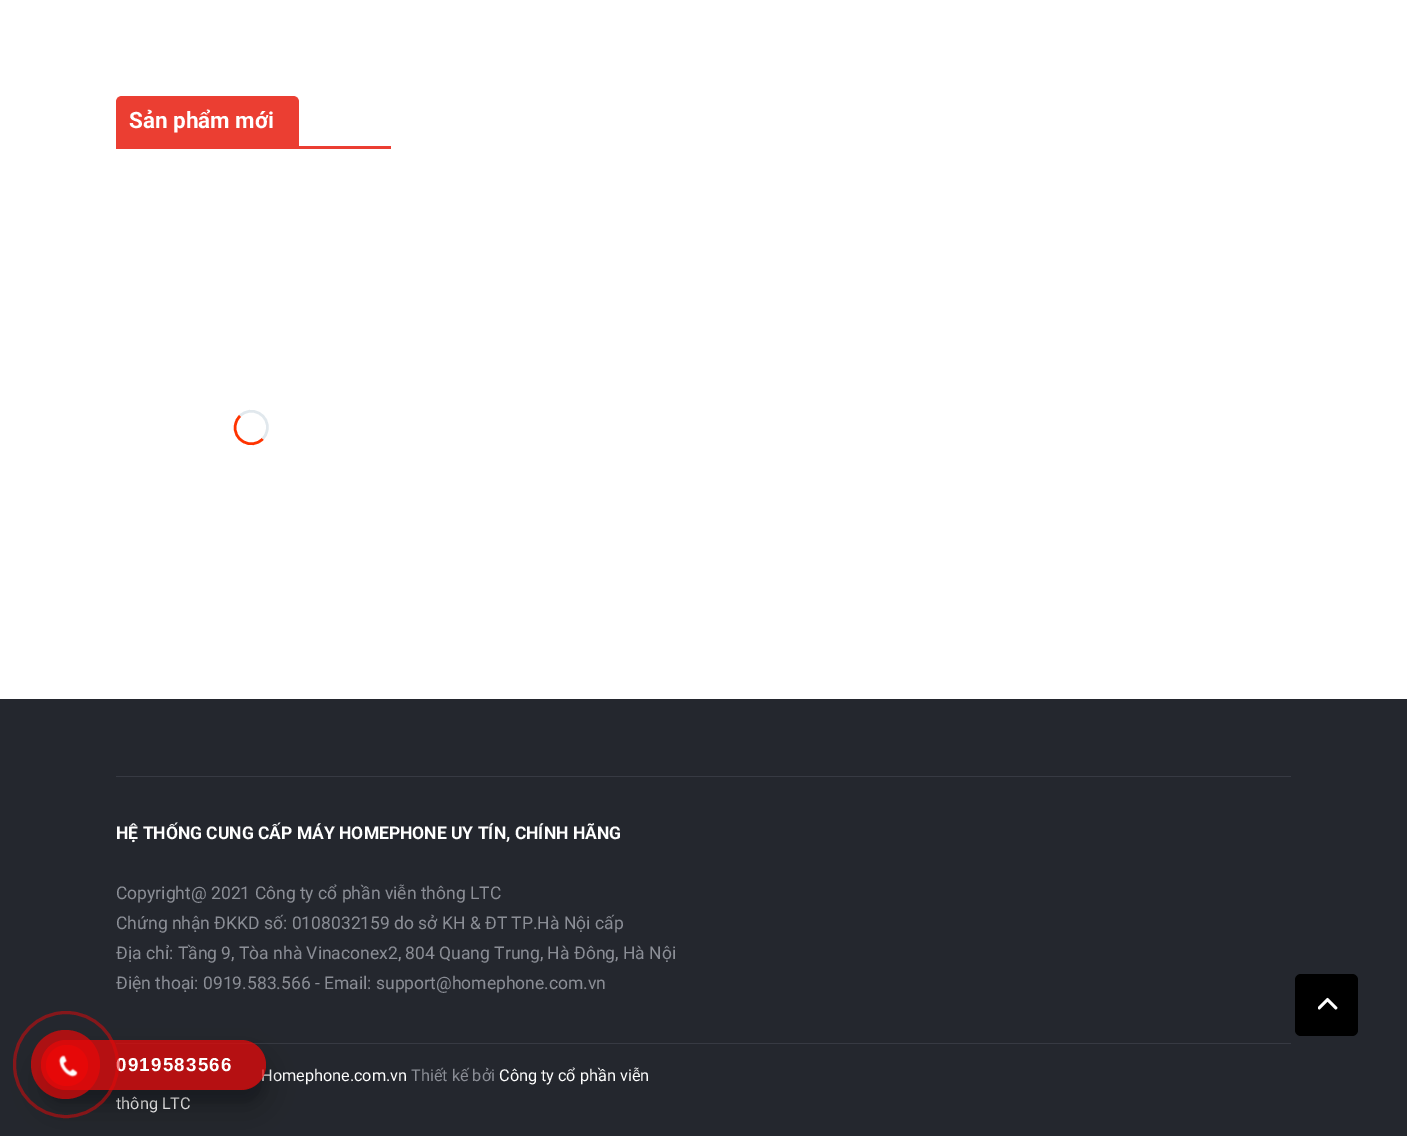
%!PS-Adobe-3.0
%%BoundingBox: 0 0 1407 1136
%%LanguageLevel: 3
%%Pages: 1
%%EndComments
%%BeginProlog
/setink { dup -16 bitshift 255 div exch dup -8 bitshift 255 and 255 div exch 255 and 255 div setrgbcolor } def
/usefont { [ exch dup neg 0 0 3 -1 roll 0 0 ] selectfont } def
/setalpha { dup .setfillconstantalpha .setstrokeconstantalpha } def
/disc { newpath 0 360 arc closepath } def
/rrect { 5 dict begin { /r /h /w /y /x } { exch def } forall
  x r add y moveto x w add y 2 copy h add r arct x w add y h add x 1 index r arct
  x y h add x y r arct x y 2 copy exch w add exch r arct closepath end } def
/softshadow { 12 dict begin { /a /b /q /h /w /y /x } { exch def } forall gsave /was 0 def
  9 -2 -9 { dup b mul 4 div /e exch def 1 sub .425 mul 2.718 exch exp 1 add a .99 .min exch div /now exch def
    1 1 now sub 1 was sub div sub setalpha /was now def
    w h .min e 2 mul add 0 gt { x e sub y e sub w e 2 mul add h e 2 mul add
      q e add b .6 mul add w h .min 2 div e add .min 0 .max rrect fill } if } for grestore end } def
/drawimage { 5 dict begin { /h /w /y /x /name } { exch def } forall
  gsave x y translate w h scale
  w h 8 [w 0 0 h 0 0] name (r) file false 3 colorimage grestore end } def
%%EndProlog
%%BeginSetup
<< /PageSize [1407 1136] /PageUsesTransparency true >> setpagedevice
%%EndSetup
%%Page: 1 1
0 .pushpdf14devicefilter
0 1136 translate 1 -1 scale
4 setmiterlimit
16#FFFFFF setink
0 0 1407 1136 rectfill
16#EB3E32 setink
116 146 275 3 rectfill
122 96 moveto 293 96 lineto 296.5 96 299 98.5 299 102 curveto 299 146 lineto 116 146 lineto 116 102 lineto 116 98.5 118.5 96 122 96 curveto closepath fill
/Roboto-Bold 22.5 usefont
16#FFFFFF setink
129 128 moveto (Sản phẩm mới) show
16#E1E8ED setink
2.5 setlinewidth
240 416 moveto 251 404.5 270.5 415 267 430.5 curveto 266.5 434 265 436.5 262.5 439 curveto stroke
16#FF3300 setink
262.5 439 moveto 251.5 450.5 232 440 235.5 424.5 curveto 236 421 237.5 418.5 240 416 curveto stroke
16#24272E setink
0 699 1407 437 rectfill
16#373A43 setink
116 776 1175 1 rectfill
/Roboto-Bold 17.5 usefont
16#FFFFFF setink
116 839 moveto (HỆ THỐNG CUNG CẤP MÁY HOMEPHONE UY TÍN, CHÍNH HÃNG) show
/Roboto-Regular 17.5 usefont
16#8B8E96 setink
[
    [(Copyright@ 2021 Công ty cổ phần viễn thông LTC) 116 899]
    [(Chứng nhận ĐKKD số: 0108032159 do sở KH & ĐT TP.Hà Nội cấp) 116 929]
    [(Địa chỉ: Tầng 9, Tòa nhà Vinaconex2, 804 Quang Trung, Hà Đông, Hà Nội) 116 959]
    [(Điện thoại: 0919.583.566 - Email: support@homephone.com.vn) 116 989]
] { aload pop moveto show } forall
16#373A43 setink
116 1043 1175 1 rectfill
/Roboto-Regular 16.25 usefont
16#FFFFFF setink
261 1081 moveto (Homephone.com.vn) show
16#8B8E96 setink
411 1081 moveto (Thiết kế bởi) show
16#FFFFFF setink
499 1081 moveto (Công ty cổ phần viễn) show
116 1109 moveto (thông LTC) show
16#000000 setink
1295 974 63 62 6 rrect fill
(img1.raw) 1318 997 20 13 drawimage
gsave
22 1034 moveto 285 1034 lineto 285 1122 lineto 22 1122 lineto closepath 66 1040 moveto 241 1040 lineto 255 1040 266 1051 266 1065 curveto 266 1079 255 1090 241 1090 curveto 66 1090 lineto 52 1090 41 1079 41 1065 curveto 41 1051 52 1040 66 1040 curveto closepath eoclip newpath
41 1053 225 50 25 6 0.1 softshadow
grestore
gsave
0 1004 moveto 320 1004 lineto 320 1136 lineto 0 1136 lineto closepath 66 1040 moveto 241 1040 lineto 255 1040 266 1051 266 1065 curveto 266 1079 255 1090 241 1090 curveto 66 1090 lineto 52 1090 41 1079 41 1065 curveto 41 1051 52 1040 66 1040 curveto closepath eoclip newpath
41 1058 225 50 25 17.5 0.25 softshadow
grestore
0.75 setalpha
16#E60808 setink
41 1040 225 50 25 rrect fill
/LiberationSans-Bold 18.75 usefont
1 setalpha
16#FFFFFF setink
116 1071 moveto 1.25 0 (0919583566) ashow
0.5 setalpha
16#E60808 setink
3 setlinewidth
14.5 1012.5 103 104 51.5 rrect stroke
0.7 setalpha
65.5 1064.5 34.5 disc fill
1 setalpha
46 1045 42 41 20.5 rrect fill
(img2.raw) 58 1055 20 23 drawimage
.poppdf14devicefilter showpage
%%EOF
